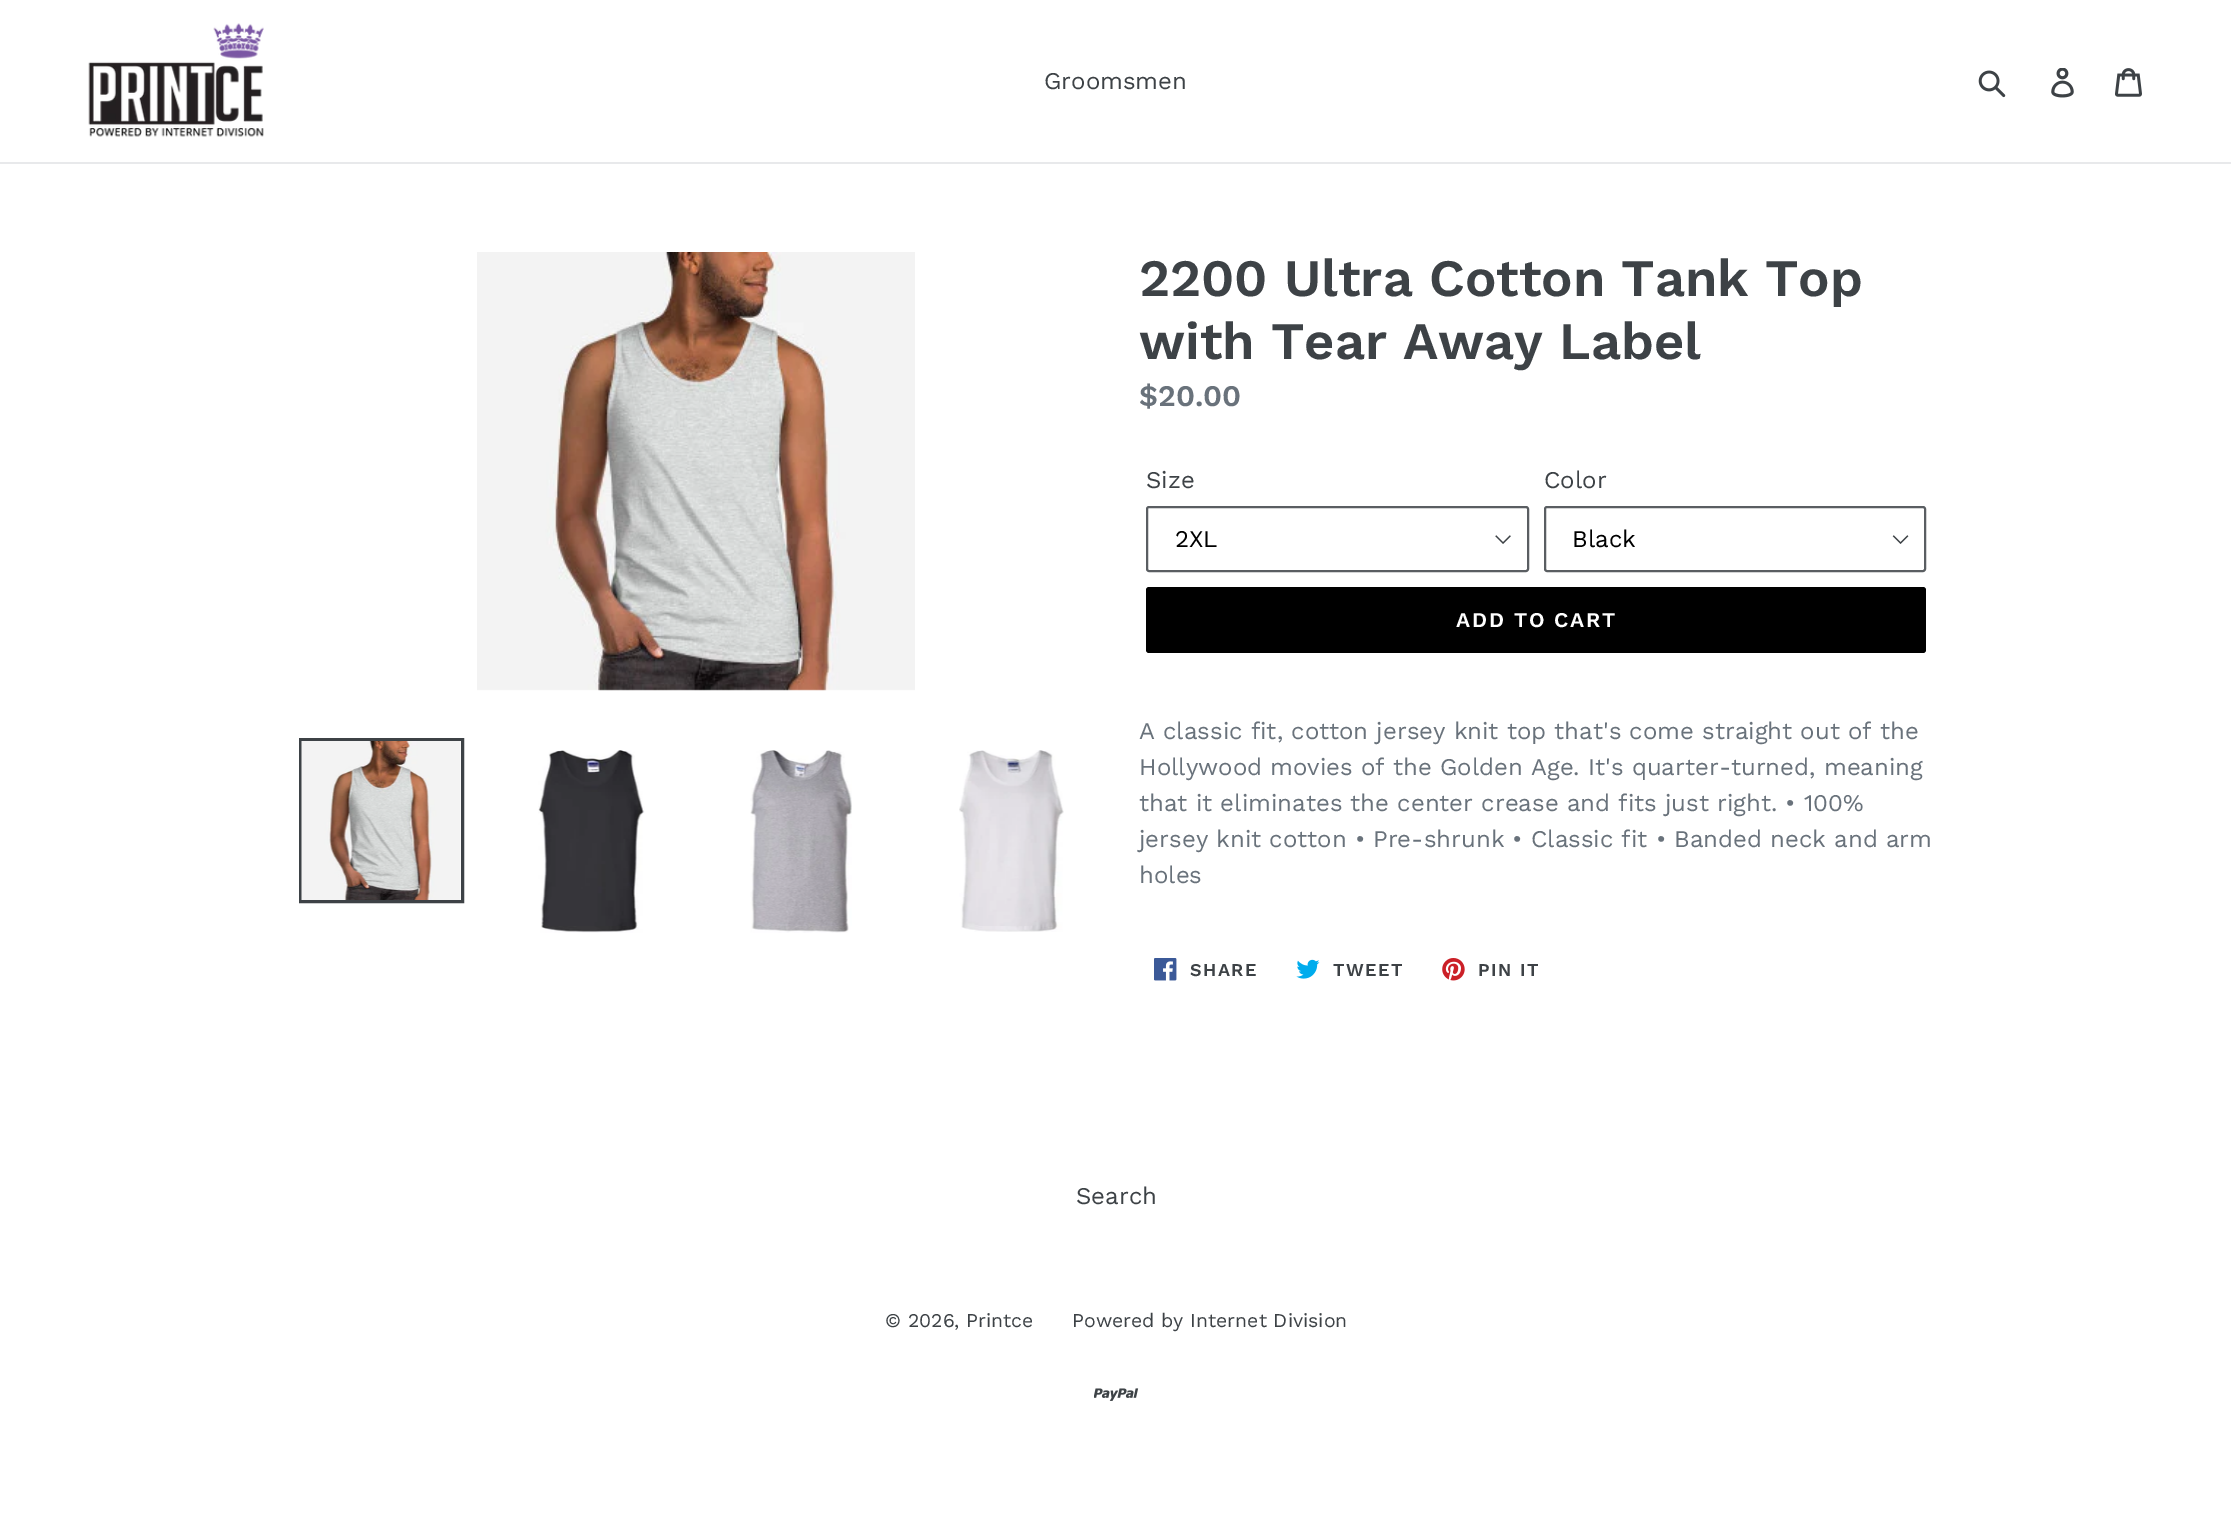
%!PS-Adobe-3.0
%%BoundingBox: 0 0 2231 1526
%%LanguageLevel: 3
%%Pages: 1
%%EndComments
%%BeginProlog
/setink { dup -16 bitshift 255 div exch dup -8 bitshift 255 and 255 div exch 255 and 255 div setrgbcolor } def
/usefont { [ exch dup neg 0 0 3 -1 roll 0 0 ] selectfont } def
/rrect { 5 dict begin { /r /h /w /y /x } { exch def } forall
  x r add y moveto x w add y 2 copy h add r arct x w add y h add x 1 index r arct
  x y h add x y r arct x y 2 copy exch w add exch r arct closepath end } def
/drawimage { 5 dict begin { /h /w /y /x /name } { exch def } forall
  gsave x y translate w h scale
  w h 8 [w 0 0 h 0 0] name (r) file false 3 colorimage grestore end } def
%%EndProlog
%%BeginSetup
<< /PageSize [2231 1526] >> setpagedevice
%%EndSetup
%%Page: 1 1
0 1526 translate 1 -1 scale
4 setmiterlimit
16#FFFFFF setink
0 0 2231 1526 rectfill
16#E8E9EB setink
0 162 2231 2 rectfill
(img1.raw) 88 23 176 114 drawimage
/WorkSans-Regular 24 usefont
16#3D4246 setink
1044 89 moveto (Groomsmen) show
(img2.raw) 1978 70 28 28 drawimage
(img3.raw) 2051 68 23 30 drawimage
(img4.raw) 2115 68 27 29 drawimage
(img5.raw) 477 252 438 439 drawimage
3 setlinewidth
300.5 739.5 162 162 rectstroke
(img6.raw) 301 741 160 159 drawimage
(img7.raw) 538 750 107 183 drawimage
(img8.raw) 750 750 102 183 drawimage
(img9.raw) 959 750 105 182 drawimage
/WorkSans-SemiBold 52.5 usefont
1139 296 moveto (2200 Ultra Cotton Tank Top) show
1139 359 moveto (with Tear Away Label) show
/WorkSans-SemiBold 30 usefont
16#69727B setink
1139 406 moveto ($20.00) show
/WorkSans-Regular 24 usefont
16#3D4246 setink
1146 488 moveto (Size) show
(img10.raw) 1495 535 16 9 drawimage
16#5A5E62 setink
2 setlinewidth
1147 507 381 64 2 rrect stroke
16#000000 setink
1175 547 moveto (2XL) show
16#3D4246 setink
1544 488 moveto (Color) show
(img11.raw) 1892 535 17 9 drawimage
16#5A5E62 setink
1545 507 380 64 2 rrect stroke
16#000000 setink
1572 547 moveto (Black) show
1146 587 780 66 3 rrect fill
/WorkSans-SemiBold 21 usefont
16#FFFFFF setink
1456 627 moveto 1.75 0 (ADD TO CART) ashow
/WorkSans-Regular 24 usefont
16#69727B setink
[
    [(A classic fit, cotton jersey knit top that's come straight out of the) 1139 739]
    [(Hollywood movies of the Golden Age. It's quarter-turned, meaning) 1139 775]
    [(that it eliminates the center crease and fits just right. • 100%) 1139 811]
    [(jersey knit cotton • Pre-shrunk • Classic fit • Banded neck and arm) 1139 847]
    [(holes) 1139 883]
] { aload pop moveto show } forall
(img12.raw) 1154 958 23 23 drawimage
/WorkSans-SemiBold 18 usefont
16#3D4246 setink
1190 976 moveto 1.5 0 (SHARE) ashow
(img13.raw) 1296 959 24 20 drawimage
1333 976 moveto 1.5 0 (TWEET) ashow
(img14.raw) 1442 958 23 23 drawimage
1478 976 moveto 1.5 0 (PIN IT) ashow
/WorkSans-Regular 24 usefont
1076 1204 moveto (Search) show
/WorkSans-Regular 19.5 usefont
885 1327 moveto (© 2026, Printce) show
1072 1327 moveto (Powered by Internet Division) show
(img15.raw) 1094 1388 45 13 drawimage
showpage
%%EOF
